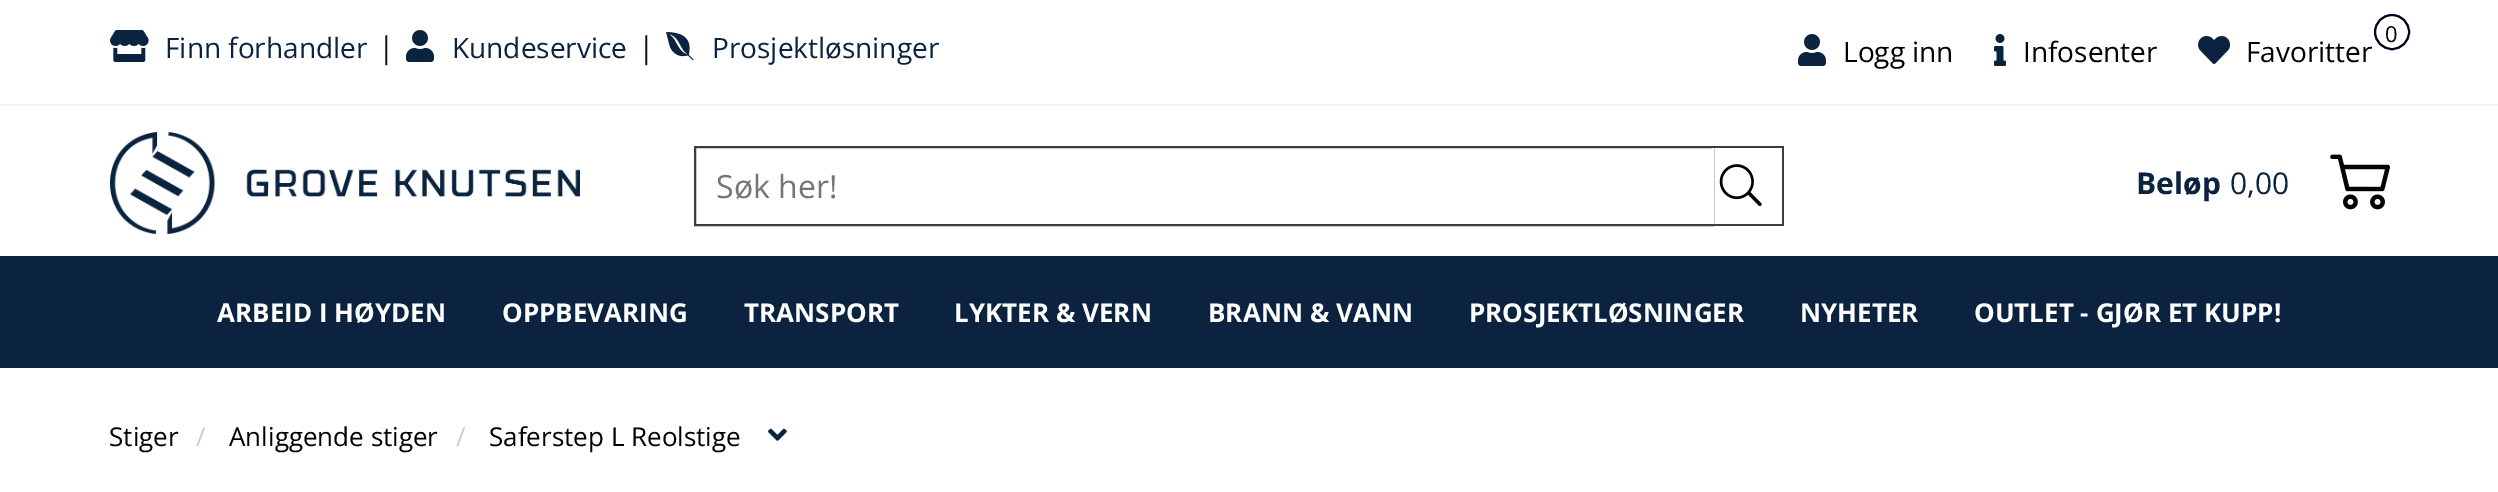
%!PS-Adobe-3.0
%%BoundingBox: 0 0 2498 492
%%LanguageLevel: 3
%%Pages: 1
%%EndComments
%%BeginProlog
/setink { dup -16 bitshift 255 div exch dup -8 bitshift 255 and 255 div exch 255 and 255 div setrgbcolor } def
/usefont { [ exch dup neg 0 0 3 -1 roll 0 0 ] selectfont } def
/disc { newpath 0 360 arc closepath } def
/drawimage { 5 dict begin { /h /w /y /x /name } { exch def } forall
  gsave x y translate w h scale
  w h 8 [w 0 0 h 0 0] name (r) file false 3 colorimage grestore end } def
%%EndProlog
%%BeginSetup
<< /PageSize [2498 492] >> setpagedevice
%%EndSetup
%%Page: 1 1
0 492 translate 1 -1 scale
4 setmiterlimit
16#FFFFFF setink
0 0 2498 492 rectfill
16#F2F2F2 setink
0 104 2498 2 rectfill
(img1.raw) 110 30 39 32 drawimage
/OpenSans-Regular 28 usefont
16#0C2340 setink
165 58 moveto (Finn forhandler) show
/OpenSans-Regular 30 usefont
16#111111 setink
378 58 moveto (|) show
(img2.raw) 406 30 28 32 drawimage
/OpenSans-Regular 28 usefont
16#0C2340 setink
452 58 moveto (Kundeservice) show
/OpenSans-Regular 30 usefont
16#111111 setink
638 58 moveto (|) show
(img3.raw) 666 32 28 28 drawimage
/OpenSans-Regular 28 usefont
16#0C2340 setink
712 58 moveto (Prosjektløsninger) show
(img2.raw) 1798 34 28 32 drawimage
16#000000 setink
1843 62 moveto (Logg inn) show
(img4.raw) 1994 34 12 32 drawimage
2023 62 moveto (Infosenter) show
16#00011E setink
2 setlinewidth
2392 32 17 disc stroke
/OpenSans-Regular 22 usefont
16#000000 setink
2385 42 moveto (0) show
(img5.raw) 2198 36 33 28 drawimage
/OpenSans-Regular 28 usefont
2246 62 moveto (Favoritter) show
(img6.raw) 110 132 470 102 drawimage
16#3D3D3D setink
695 147 1018 78 rectstroke
/OpenSans-Regular 32 usefont
16#757575 setink
716 198 moveto (Søk her!) show
[
    [1712 148 2 76 16#FFFFFF]
    [1714 146 70 2 16#3D3D3D]
    [1782 146 2 80 16#3D3D3D]
    [1714 224 70 2 16#3D3D3D]
] { aload pop setink rectfill } forall
(img7.raw) 1719 164 43 43 drawimage
/OpenSans-Bold 30 usefont
16#0C2340 setink
2136 194 moveto (Beløp) show
/OpenSans-Regular 30 usefont
2230 194 moveto (0,00) show
(img8.raw) 2330 154 60 56 drawimage
0 256 2498 112 rectfill
/OpenSans-Bold 26 usefont
16#FFFFFF setink
[
    [(ARBEID I HØYDEN) 217 322]
    [(OPPBEVARING) 502 322]
    [(TRANSPORT) 744 322]
    [(LYKTER & VERN) 954 322]
    [(BRANN & VANN) 1208 322]
    [(PROSJEKTLØSNINGER) 1469 322]
    [(NYHETER) 1800 322]
    [(OUTLET - GJØR ET KUPP!) 1974 322]
] { aload pop moveto show } forall
/OpenSans-Regular 26 usefont
16#000000 setink
109 446 moveto (Stiger) show
16#CCCCCC setink
196 446 moveto (/) show
16#000000 setink
229 446 moveto (Anliggende stiger) show
16#CCCCCC setink
456 446 moveto (/) show
16#000000 setink
489 446 moveto (Saferstep L Reolstige) show
(img9.raw) 768 428 19 13 drawimage
showpage
%%EOF
